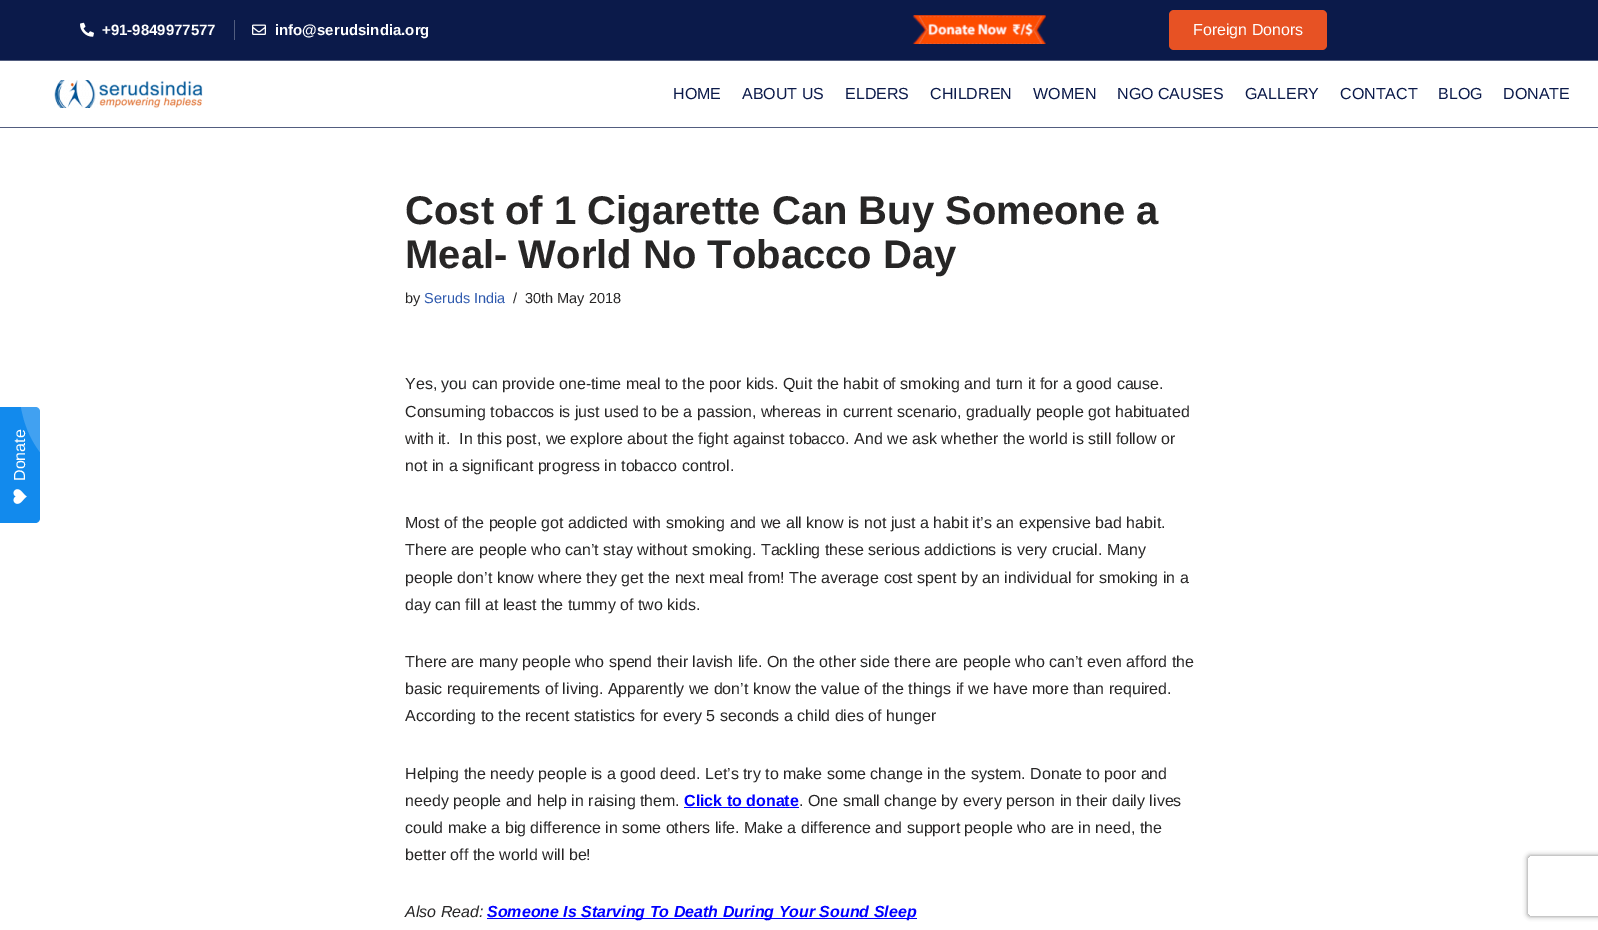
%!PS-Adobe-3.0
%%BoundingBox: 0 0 1598 930
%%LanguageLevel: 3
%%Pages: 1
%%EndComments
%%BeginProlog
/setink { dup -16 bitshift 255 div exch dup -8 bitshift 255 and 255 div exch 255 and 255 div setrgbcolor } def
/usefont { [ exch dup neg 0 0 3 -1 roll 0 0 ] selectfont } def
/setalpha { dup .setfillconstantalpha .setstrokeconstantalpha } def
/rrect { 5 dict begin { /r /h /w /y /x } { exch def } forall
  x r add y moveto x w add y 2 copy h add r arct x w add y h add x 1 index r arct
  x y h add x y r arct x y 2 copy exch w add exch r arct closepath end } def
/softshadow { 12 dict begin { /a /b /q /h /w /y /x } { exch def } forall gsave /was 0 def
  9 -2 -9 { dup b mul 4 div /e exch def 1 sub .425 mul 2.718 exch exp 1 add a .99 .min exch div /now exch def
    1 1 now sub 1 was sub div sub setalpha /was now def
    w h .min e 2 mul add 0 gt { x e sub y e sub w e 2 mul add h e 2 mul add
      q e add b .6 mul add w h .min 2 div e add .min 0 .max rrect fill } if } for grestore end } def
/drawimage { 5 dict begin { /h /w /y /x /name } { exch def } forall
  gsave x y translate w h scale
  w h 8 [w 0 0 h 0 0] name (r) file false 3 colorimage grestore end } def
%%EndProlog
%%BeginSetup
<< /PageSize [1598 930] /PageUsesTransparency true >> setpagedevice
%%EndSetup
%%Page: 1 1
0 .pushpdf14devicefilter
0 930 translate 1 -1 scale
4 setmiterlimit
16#FFFFFF setink
0 0 1598 930 rectfill
16#128AED setink
0 523 moveto 0 407 lineto 35 407 lineto 38 407 40 409 40 412 curveto 40 518 lineto 40 521 38 523 35 523 curveto closepath fill
/LiberationSans-Regular 16 usefont
16#FFFFFF setink
gsave 25 481 translate -90 rotate 0 0 moveto (Donate) show grestore
0.2 setalpha
40 452 moveto 30 439 24 424 21 407 curveto 35 407 lineto 38 407 40 409 40 412 curveto closepath fill
1 setalpha
(img1.raw) 13 489 14 15 drawimage
16#0B1A4A setink
0 0 1598 60 rectfill
16#525D7F setink
0 60 1598 1 rectfill
(img2.raw) 80 22 14 15 drawimage
/LiberationSans-Bold 15 usefont
16#FFFFFF setink
102 35 moveto (+91-9849977577) show
16#525D7F setink
234 20 1 20 rectfill
(img3.raw) 252 24 14 11 drawimage
16#FFFFFF setink
275 35 moveto (info@serudsindia.org) show
(img4.raw) 912 15 134 29 drawimage
16#E75224 setink
1169 10 158 40 5 rrect fill
/LiberationSans-Regular 16 usefont
16#FFFFFF setink
1193 35 moveto (Foreign Donors) show
16#525D7F setink
0 127 1598 1 rectfill
(img5.raw) 54 80 149 28 drawimage
16#0B1A4A setink
[
    [(HOME) 673 99]
    [(ABOUT US) 742 99]
    [(ELDERS) 845 99]
    [(CHILDREN) 930 99]
    [(WOMEN) 1033 99]
    [(NGO CAUSES) 1117 99]
    [(GALLERY) 1245 99]
    [(CONTACT) 1340 99]
    [(BLOG) 1438 99]
    [(DONATE) 1503 99]
] { aload pop moveto show } forall
/LiberationSans-Bold 40 usefont
16#272626 setink
405 224 moveto (Cost of 1 Cigarette Can Buy Someone a) show
405 268 moveto (Meal- World No Tobacco Day) show
/LiberationSans-Regular 14.5 usefont
405 303 moveto (by) show
16#2F5AAE setink
424 303 moveto (Seruds India) show
16#272626 setink
513 303 moveto (/) show
525 303 moveto (30th May 2018) show
/LiberationSans-Regular 16 usefont
[
    [(Yes, you can provide one-time meal to the poor kids. Quit the habit of smoking and turn it for a good cause.) 405 389]
    [(Consuming tobaccos is just used to be a passion, whereas in current scenario, gradually people got habituated) 405 417]
    [(with it.  In this post, we explore about the fight against tobacco. And we ask whether the world is still follow or) 405 444]
    [(not in a significant progress in tobacco control.) 405 471]
    [(Most of the people got addicted with smoking and we all know is not just a habit it’s an expensive bad habit.) 405 528]
    [(There are people who can’t stay without smoking. Tackling these serious addictions is very crucial. Many) 405 555]
    [(people don’t know where they get the next meal from! The average cost spent by an individual for smoking in a) 405 583]
    [(day can fill at least the tummy of two kids.) 405 610]
    [(There are many people who spend their lavish life. On the other side there are people who can’t even afford the) 405 667]
    [(basic requirements of living. Apparently we don’t know the value of the things if we have more than required.) 405 694]
    [(According to the recent statistics for every 5 seconds a child dies of hunger) 405 721]
    [(Helping the needy people is a good deed. Let’s try to make some change in the system. Donate to poor and) 405 779]
    [(needy people and help in raising them.) 405 806]
] { aload pop moveto show } forall
/LiberationSans-Bold 16 usefont
16#0000FF setink
684 806 moveto (Click to donate) show
684 807 115 1 rectfill
/LiberationSans-Regular 16 usefont
16#272626 setink
[
    [(. One small change by every person in their daily lives) 799 806]
    [(could make a big difference in some others life. Make a difference and support people who are in need, the) 405 833]
    [(better off the world will be!) 405 860]
] { aload pop moveto show } forall
/LiberationSans-Italic 16 usefont
405 917 moveto (Also Read:) show
16#0000FF setink
487 918 430 1 rectfill
/LiberationSans-BoldItalic 16 usefont
487 917 moveto (Someone Is Starving To Death During Your Sound Sleep) show
gsave
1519 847 moveto 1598 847 lineto 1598 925 lineto 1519 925 lineto closepath 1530 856 moveto 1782 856 lineto 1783 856 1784 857 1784 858 curveto 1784 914 lineto 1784 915 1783 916 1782 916 curveto 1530 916 lineto 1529 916 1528 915 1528 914 curveto 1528 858 lineto 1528 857 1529 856 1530 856 curveto closepath eoclip newpath
16#808080 setink
1528 856 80 60 2 2.5 1 softshadow
grestore
.poppdf14devicefilter showpage
%%EOF
